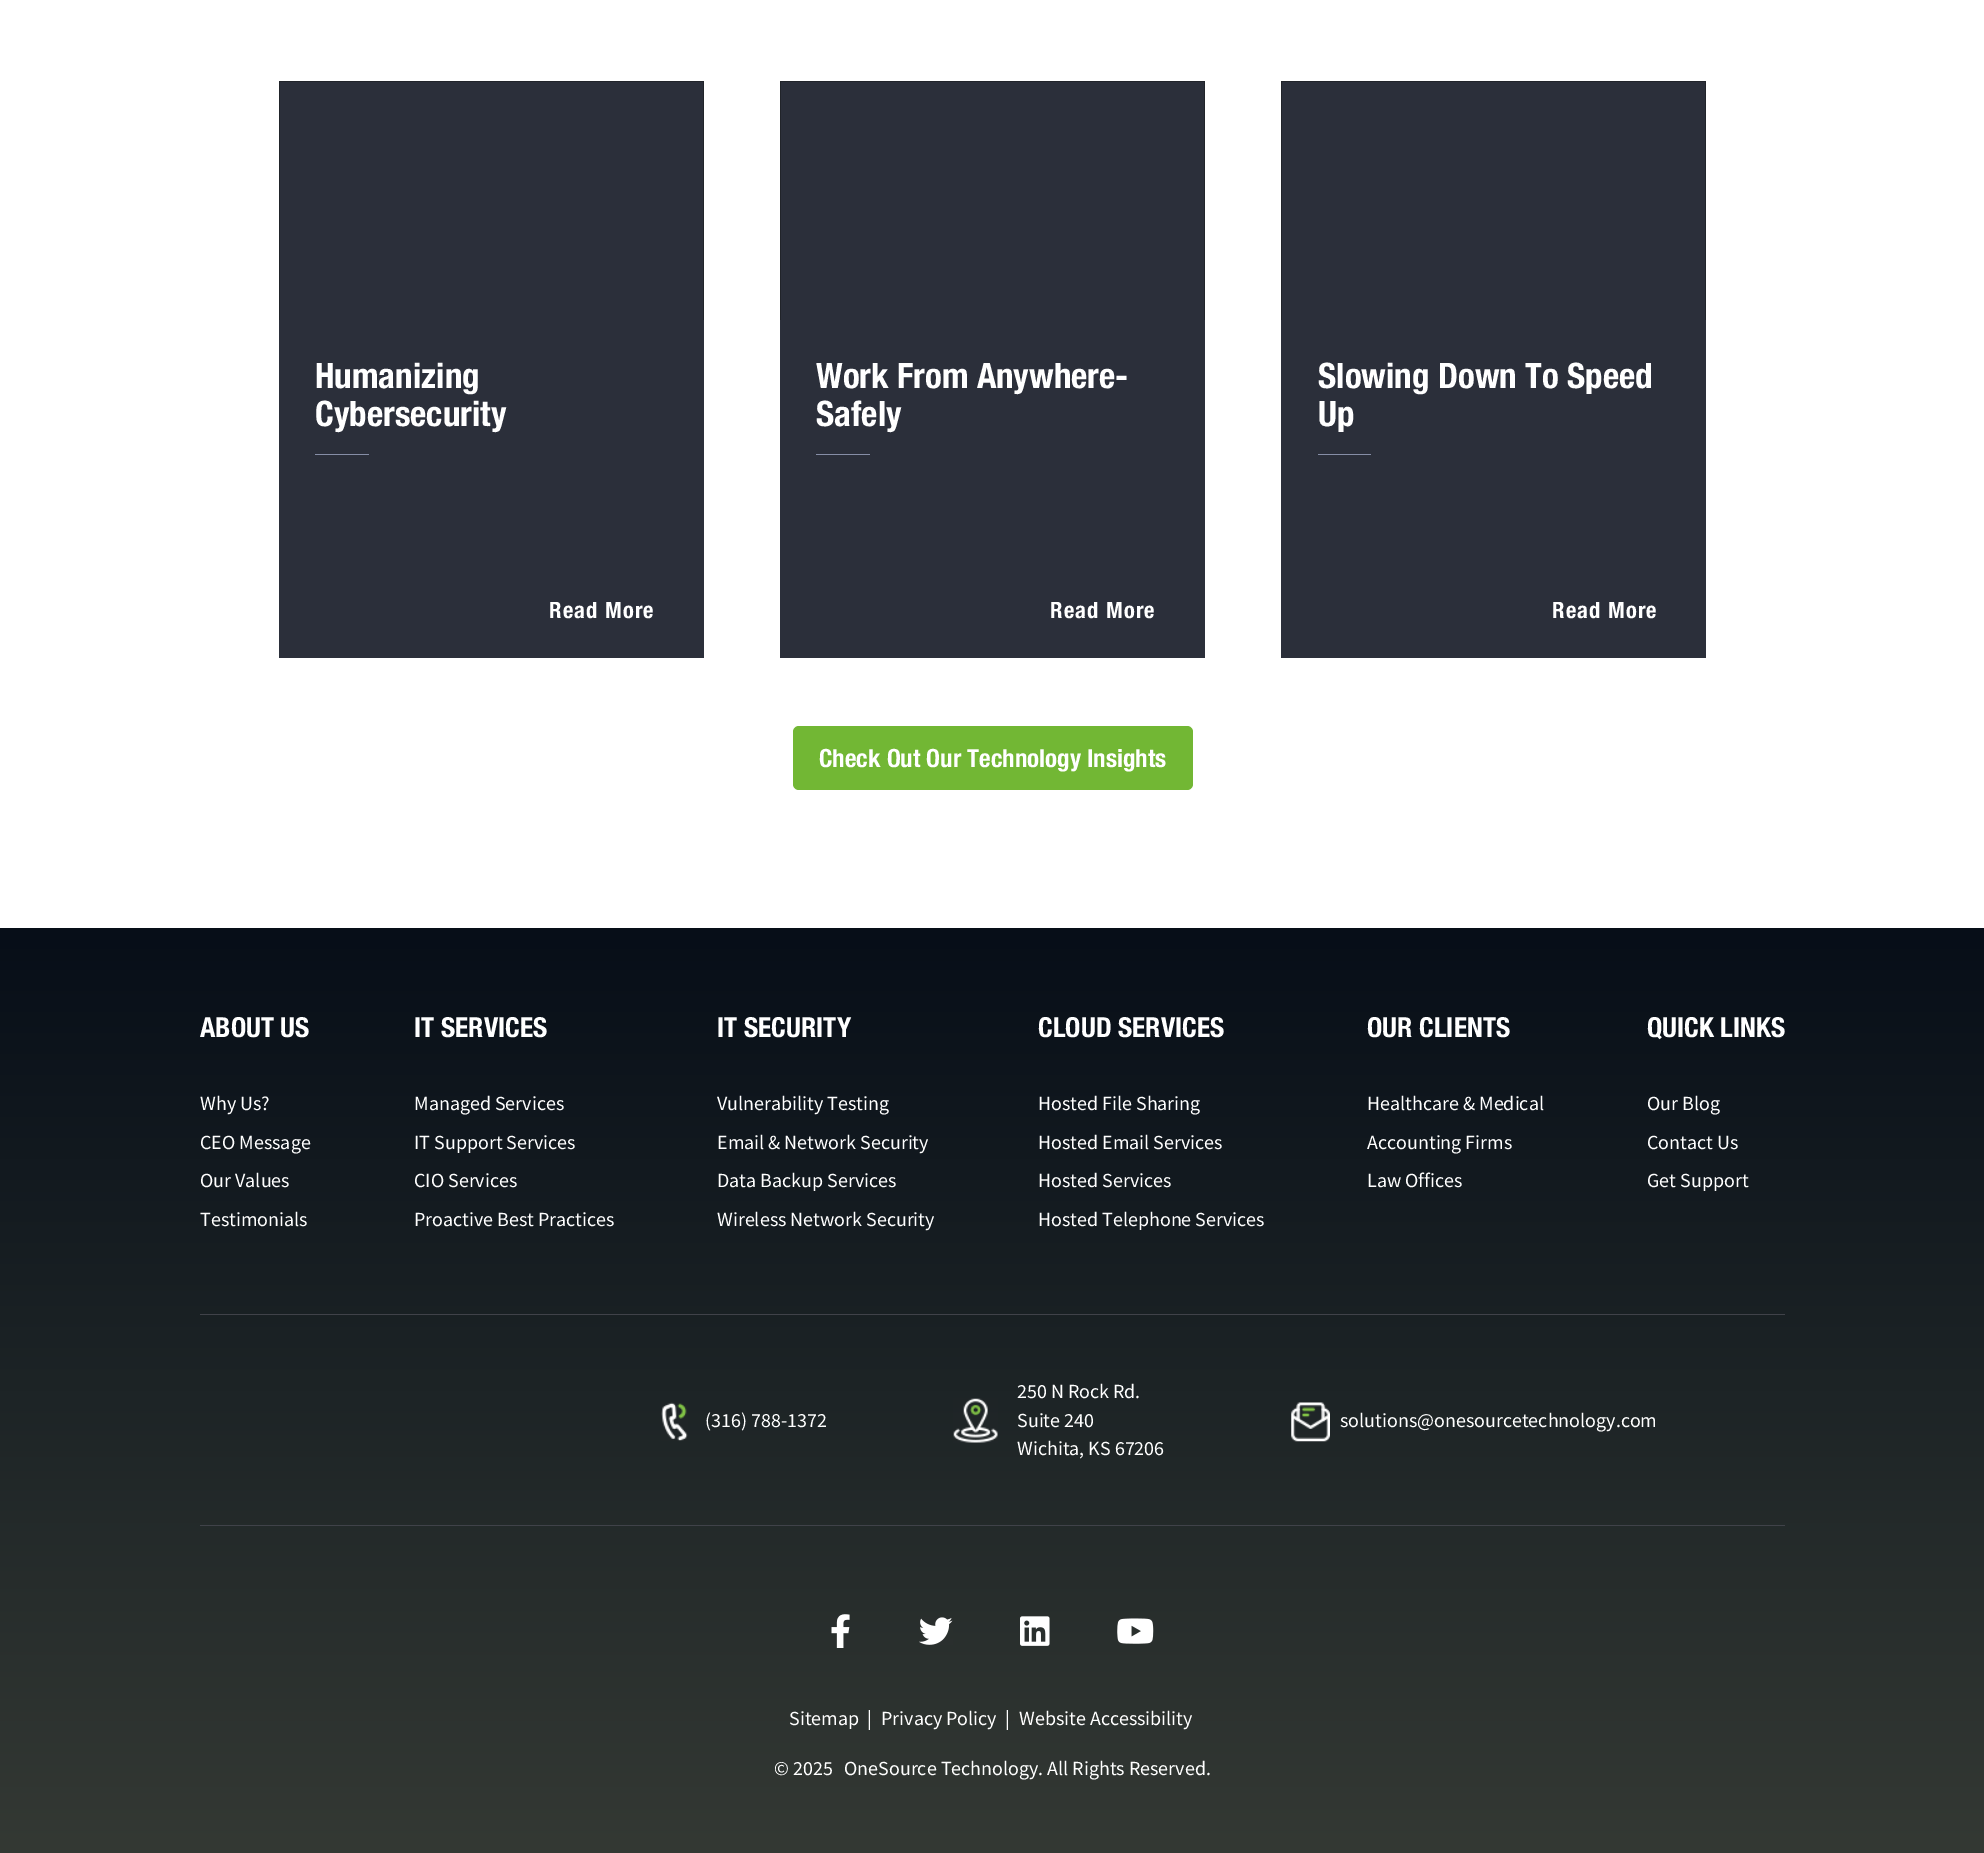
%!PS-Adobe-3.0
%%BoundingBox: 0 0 1984 1853
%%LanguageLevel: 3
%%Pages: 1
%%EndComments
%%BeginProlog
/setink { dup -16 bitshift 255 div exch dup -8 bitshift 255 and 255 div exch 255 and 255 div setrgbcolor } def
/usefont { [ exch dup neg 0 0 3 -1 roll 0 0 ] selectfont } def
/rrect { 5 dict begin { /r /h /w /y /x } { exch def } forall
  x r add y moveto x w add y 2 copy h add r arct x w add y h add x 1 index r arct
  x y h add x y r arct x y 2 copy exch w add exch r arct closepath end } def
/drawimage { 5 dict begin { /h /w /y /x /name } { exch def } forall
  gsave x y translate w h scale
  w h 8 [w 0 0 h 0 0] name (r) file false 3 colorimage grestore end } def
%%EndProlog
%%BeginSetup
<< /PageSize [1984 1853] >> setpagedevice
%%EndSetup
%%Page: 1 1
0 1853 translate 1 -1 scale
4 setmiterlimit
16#FFFFFF setink
0 0 1984 1853 rectfill
[
    [279 82 425 576 16#2B2F3A]
    [279 81 425 1 16#21242A]
    [703 81 1 239 16#21242A]
    [279 81 1 239 16#21242A]
] { aload pop setink rectfill } forall
/HelveticaNeue-Bold 35 usefont
16#FFFFFF setink
315 388 moveto (Humanizing) show
315 426 moveto (Cybersecurity) show
16#868EA6 setink
315 454 54 1 rectfill
/HelveticaNeue-Bold 22.5 usefont
16#FFFFFF setink
549 618 moveto 1.1 0 (Read More) ashow
[
    [780 82 425 576 16#2B2F3A]
    [780 81 425 1 16#21242A]
    [1204 81 1 239 16#21242A]
    [780 81 1 239 16#21242A]
] { aload pop setink rectfill } forall
/HelveticaNeue-Bold 35 usefont
16#FFFFFF setink
816 388 moveto (Work From Anywhere-) show
816 426 moveto (Safely) show
16#868EA6 setink
816 454 54 1 rectfill
/HelveticaNeue-Bold 22.5 usefont
16#FFFFFF setink
1050 618 moveto 1.1 0 (Read More) ashow
[
    [1281 82 425 576 16#2B2F3A]
    [1281 81 425 1 16#21242A]
    [1705 81 1 239 16#21242A]
    [1281 81 1 239 16#21242A]
] { aload pop setink rectfill } forall
/HelveticaNeue-Bold 35 usefont
16#FFFFFF setink
1318 388 moveto (Slowing Down To Speed) show
1318 426 moveto (Up) show
16#868EA6 setink
1318 454 53 1 rectfill
/HelveticaNeue-Bold 22.5 usefont
16#FFFFFF setink
1552 618 moveto 1.1 0 (Read More) ashow
16#72B734 setink
793 726 400 64 6 rrect fill
/HelveticaNeue-Bold 25 usefont
16#FFFFFF setink
819 767 moveto (Check Out Our Technology Insights) show
gsave 0 928 moveto 1984 928 lineto 1984 1853 lineto 0 1853 lineto closepath clip newpath
<< /ShadingType 2 /ColorSpace /DeviceRGB /Coords [993 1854 993 928] /Extend [true true] /Function << /FunctionType 2 /Domain [0 1] /C0 [0.204 0.224 0.204] /C1 [0.027 0.055 0.094] /N 1 >> >> shfill grestore
16#404249 setink
200 1314 1585 1 rectfill
/HelveticaNeue-Bold 27.5 usefont
16#FFFFFF setink
200 1037 moveto (ABOUT US) show
/SourceSansPro-Regular 20 usefont
[
    [(Why Us?) 200 1110]
    [(CEO Message) 200 1149]
    [(Our Values) 200 1187]
    [(Testimonials) 200 1226]
] { aload pop moveto show } forall
/HelveticaNeue-Bold 27.5 usefont
414 1037 moveto (IT SERVICES) show
/SourceSansPro-Regular 20 usefont
[
    [(Managed Services) 414 1110]
    [(IT Support Services) 414 1149]
    [(CIO Services) 414 1187]
    [(Proactive Best Practices) 414 1226]
] { aload pop moveto show } forall
/HelveticaNeue-Bold 27.5 usefont
717 1037 moveto (IT SECURITY) show
/SourceSansPro-Regular 20 usefont
[
    [(Vulnerability Testing) 717 1110]
    [(Email & Network Security) 717 1149]
    [(Data Backup Services) 717 1187]
    [(Wireless Network Security) 717 1226]
] { aload pop moveto show } forall
/HelveticaNeue-Bold 27.5 usefont
1038 1037 moveto (CLOUD SERVICES) show
/SourceSansPro-Regular 20 usefont
[
    [(Hosted File Sharing) 1038 1110]
    [(Hosted Email Services) 1038 1149]
    [(Hosted Services) 1038 1187]
    [(Hosted Telephone Services) 1038 1226]
] { aload pop moveto show } forall
/HelveticaNeue-Bold 27.5 usefont
1367 1037 moveto (OUR CLIENTS) show
/SourceSansPro-Regular 20 usefont
[
    [(Healthcare & Medical) 1367 1110]
    [(Accounting Firms) 1367 1149]
    [(Law Offices) 1367 1187]
] { aload pop moveto show } forall
/HelveticaNeue-Bold 27.5 usefont
1647 1037 moveto (QUICK LINKS) show
/SourceSansPro-Regular 20 usefont
[
    [(Our Blog) 1647 1110]
    [(Contact Us) 1647 1149]
    [(Get Support) 1647 1187]
] { aload pop moveto show } forall
16#404249 setink
200 1525 1585 1 rectfill
(img1.raw) 661 1402 27 39 drawimage
16#FFFFFF setink
705 1427 moveto (\(316\) 788-1372) show
1017 1398 moveto (250 N Rock Rd.) show
(img2.raw) 953 1398 45 45 drawimage
1017 1427 moveto (Suite 240) show
1017 1455 moveto (Wichita, KS 67206) show
(img3.raw) 1291 1402 39 40 drawimage
1340 1427 moveto (solutions@onesourcetechnology.com) show
(img4.raw) 831 1614 19 34 drawimage
(img5.raw) 919 1617 34 28 drawimage
(img6.raw) 1020 1616 30 30 drawimage
(img7.raw) 1117 1618 37 26 drawimage
[
    [(Sitemap) 789 1725]
    [(|) 867 1725]
    [(Privacy Policy) 881 1725]
    [(|) 1005 1725]
    [(Website Accessibility) 1019 1725]
    [(© 2025) 774 1775]
    [(OneSource Technology. All Rights Reserved.) 844 1775]
] { aload pop moveto show } forall
showpage
%%EOF
